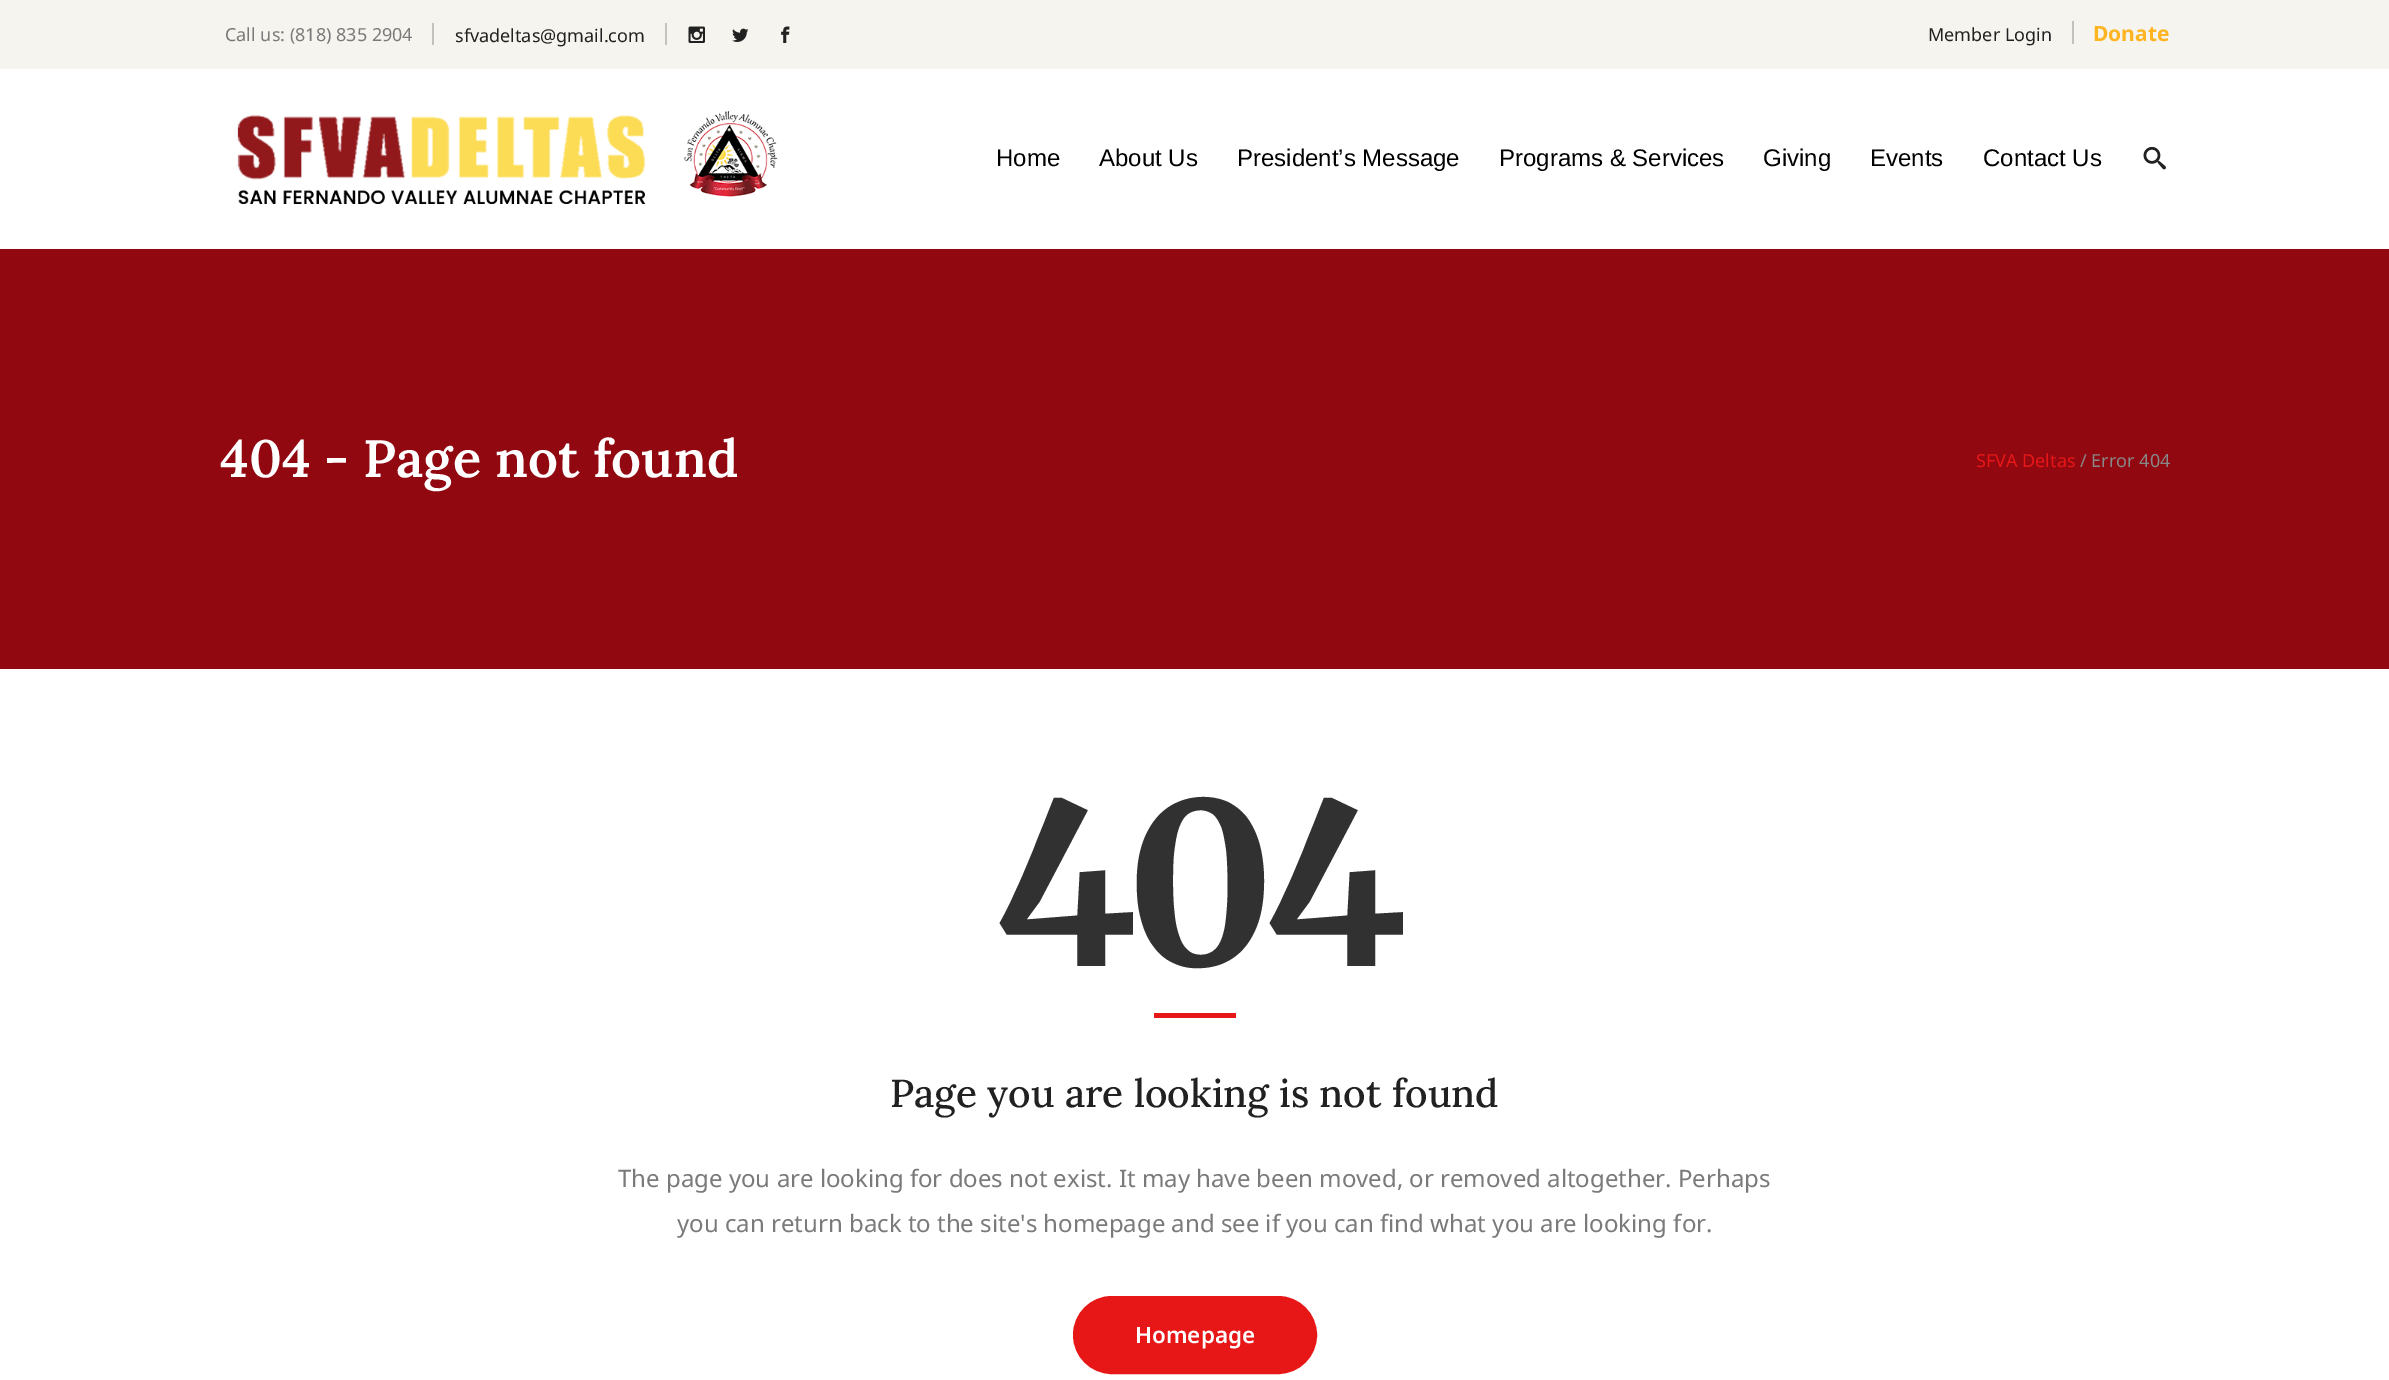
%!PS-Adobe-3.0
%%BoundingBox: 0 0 2389 1380
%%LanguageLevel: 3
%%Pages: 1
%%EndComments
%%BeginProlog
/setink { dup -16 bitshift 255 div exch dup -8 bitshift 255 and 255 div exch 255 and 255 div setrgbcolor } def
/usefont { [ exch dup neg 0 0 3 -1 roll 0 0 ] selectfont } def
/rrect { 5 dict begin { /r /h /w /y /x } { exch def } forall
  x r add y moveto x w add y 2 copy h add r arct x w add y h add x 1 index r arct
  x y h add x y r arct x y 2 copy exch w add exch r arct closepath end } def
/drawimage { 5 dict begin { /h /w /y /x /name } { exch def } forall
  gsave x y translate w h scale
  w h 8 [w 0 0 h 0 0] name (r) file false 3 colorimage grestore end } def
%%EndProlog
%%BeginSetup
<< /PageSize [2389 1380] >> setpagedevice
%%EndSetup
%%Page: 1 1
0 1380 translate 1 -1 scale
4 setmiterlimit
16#FFFFFF setink
0 0 2389 1380 rectfill
16#F6F4EE setink
0 0 2389 69 rectfill
/NotoSans-Regular 18 usefont
16#7A7A7A setink
225 41 moveto (Call us: \(818\) 835 2904) show
16#C3C2BF setink
432 23 2 22 rectfill
16#212121 setink
455 42 moveto (sfvadeltas@gmail.com) show
16#C3C2BF setink
665 23 2 22 rectfill
(img1.raw) 688 26 17 17 drawimage
(img2.raw) 732 28 17 14 drawimage
(img3.raw) 781 26 9 17 drawimage
16#212121 setink
1928 41 moveto (Member Login) show
16#C3C2BF setink
2072 21 2 23 rectfill
/NotoSans-Bold 21 usefont
16#FFB422 setink
2093 41 moveto (Donate) show
(img4.raw) 237 111 541 93 drawimage
/LiberationSans-Regular 24 usefont
16#000000 setink
[
    [(Home) 996 166]
    [(About Us) 1099 166]
    [(President’s Message) 1237 166]
    [(Programs & Services) 1499 166]
    [(Giving) 1763 166]
    [(Events) 1870 166]
    [(Contact Us) 1983 166]
] { aload pop moveto show } forall
(img5.raw) 2143 146 23 24 drawimage
16#910811 setink
0 249 2389 420 rectfill
/Lora-SemiBold 52.5 usefont
16#FFFFFF setink
220 477 moveto (404 - Page not found) show
/NotoSans-Regular 18 usefont
16#E81717 setink
1976 467 moveto (SFVA Deltas) show
16#888888 setink
2080 467 moveto (/ Error 404) show
/Merriweather-Bold 225 usefont
16#313131 setink
994 966 moveto -11 0 (404) ashow
16#E81717 setink
1154 1013 82 5 rectfill
/Lora-Medium 39 usefont
16#212121 setink
890 1107 moveto (Page you are looking is not found) show
/NotoSans-Regular 24 usefont
16#7A7A7A setink
618 1187 moveto (The page you are looking for does not exist. It may have been moved, or removed altogether. Perhaps) show
677 1232 moveto (you can return back to the site's homepage and see if you can find what you are looking for.) show
16#E81717 setink
1074.5 1297.5 241 75 37.5 rrect gsave fill grestore
3 setlinewidth
stroke
/NotoSans-SemiBold 22.5 usefont
16#FFFFFF setink
1135 1343 moveto (Homepage) show
showpage
%%EOF
